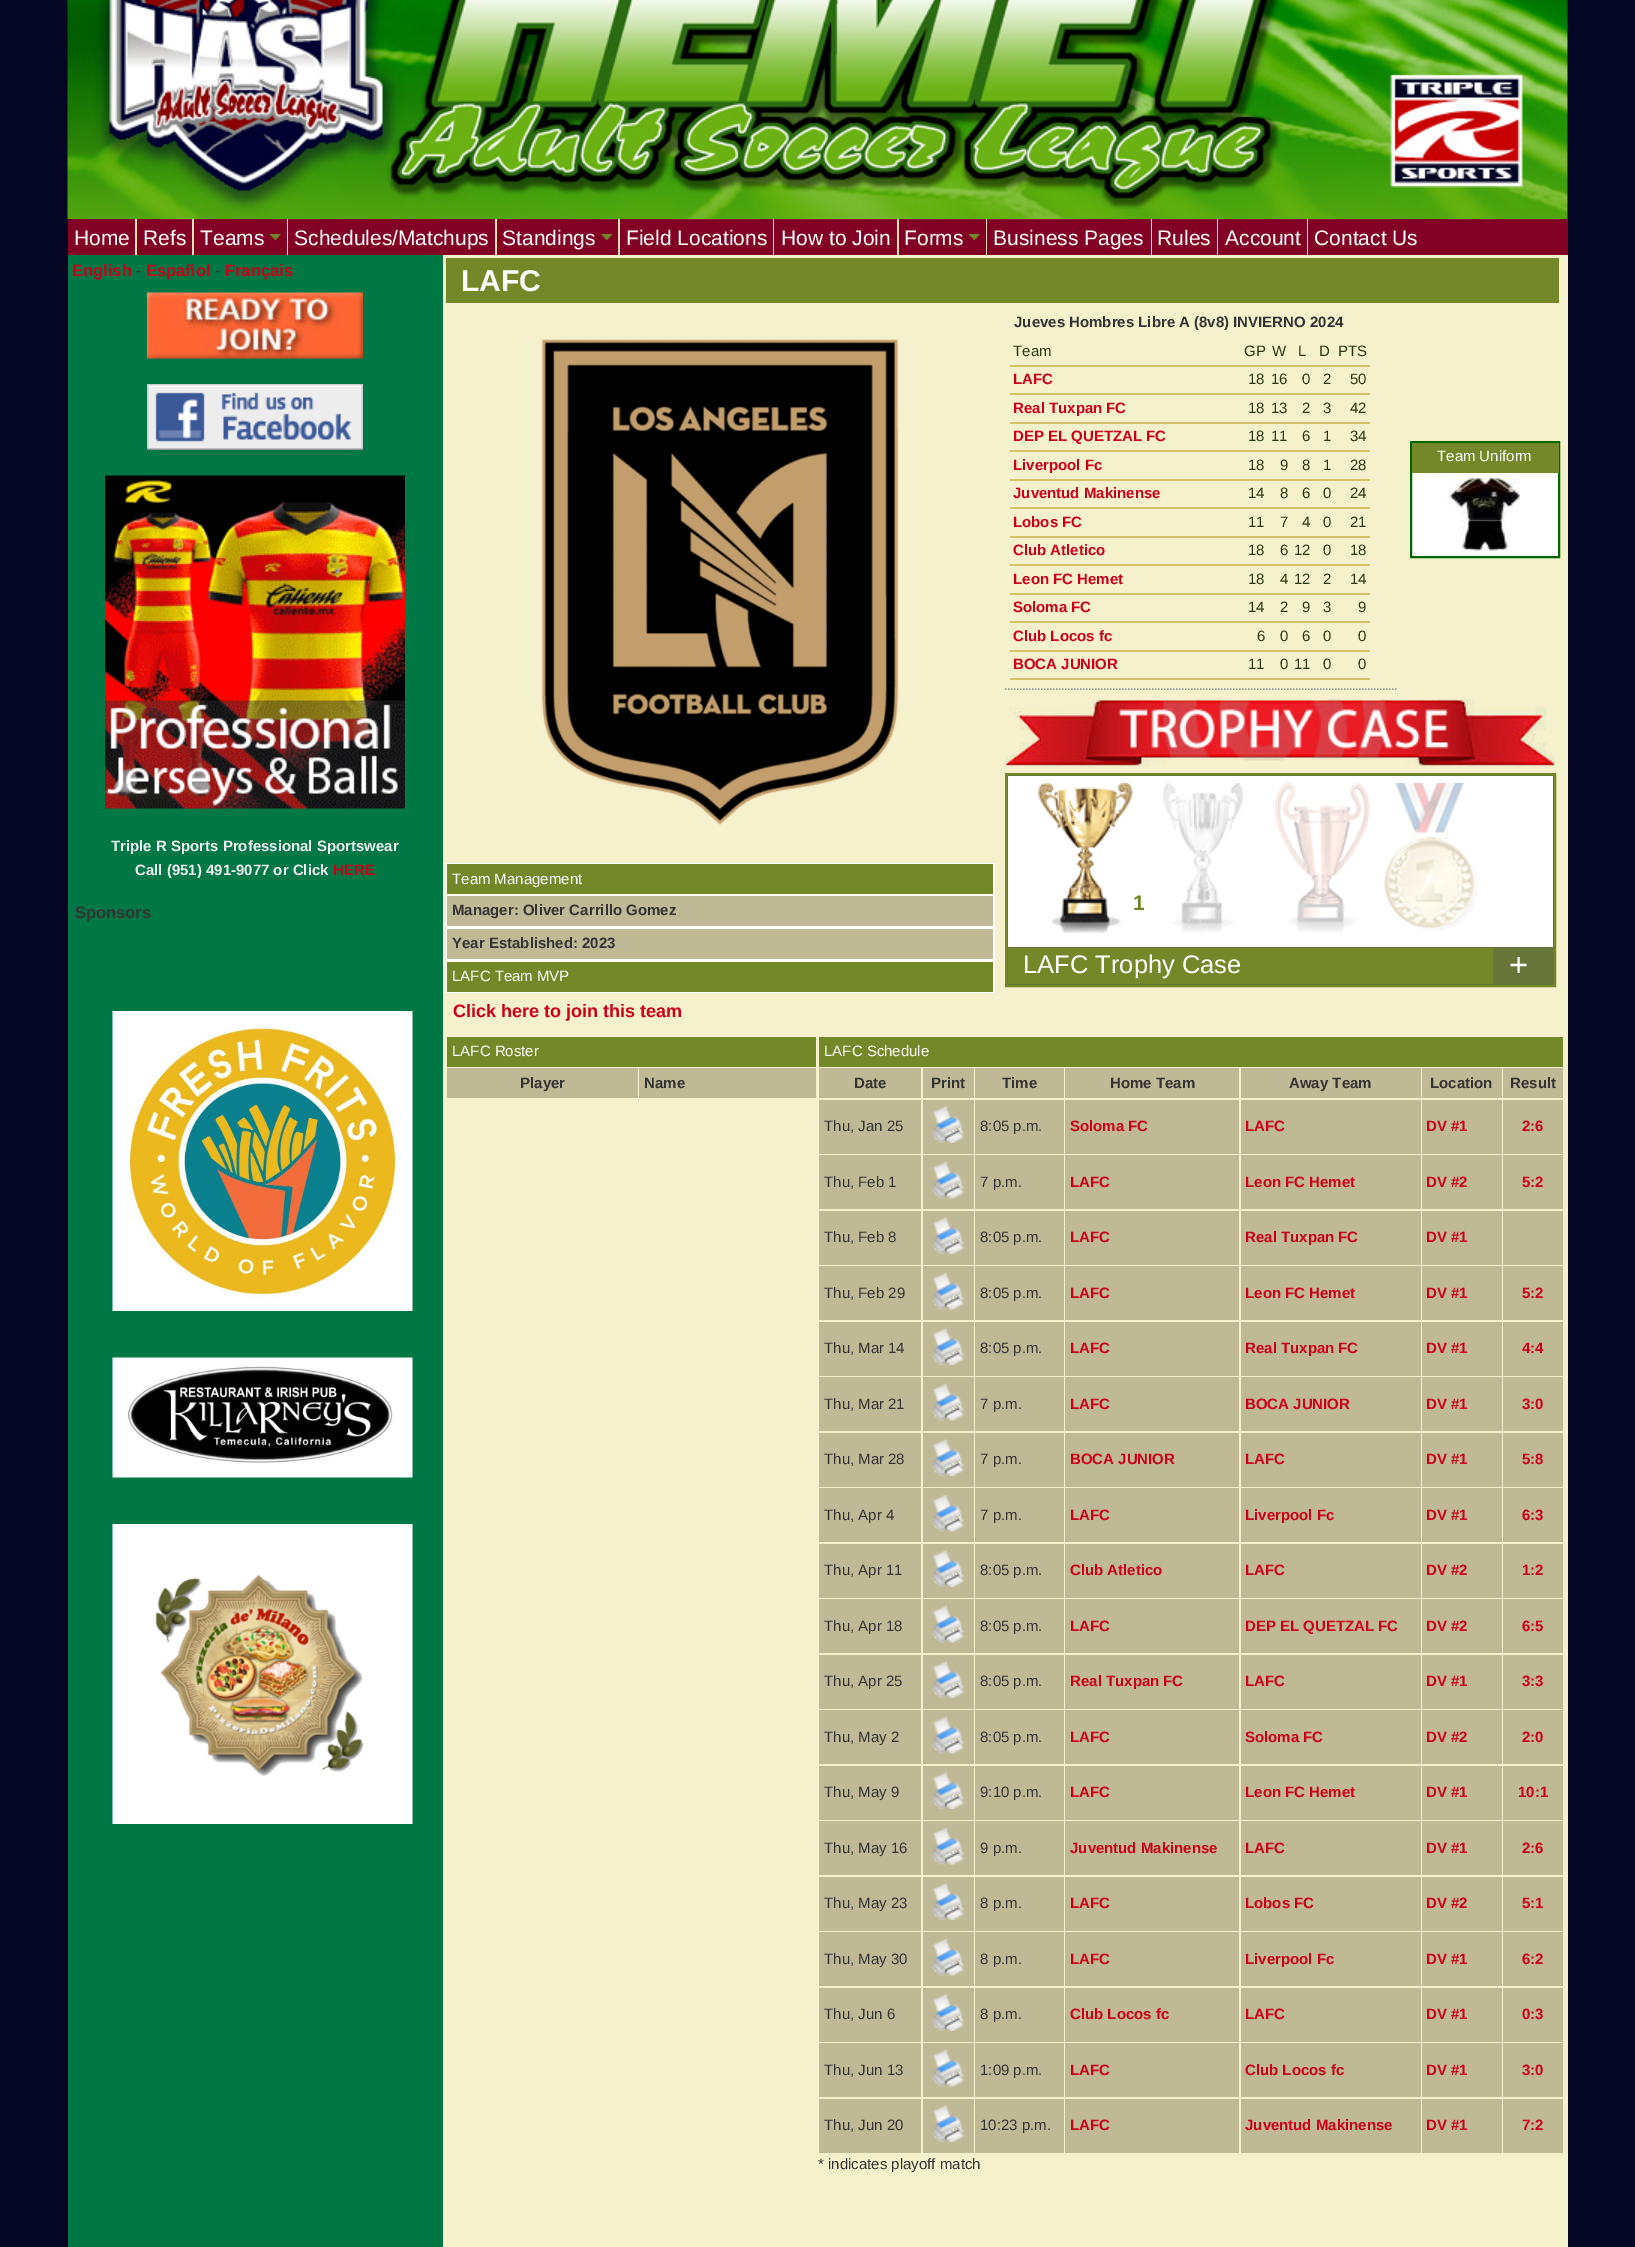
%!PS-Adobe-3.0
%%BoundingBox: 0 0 1635 2247
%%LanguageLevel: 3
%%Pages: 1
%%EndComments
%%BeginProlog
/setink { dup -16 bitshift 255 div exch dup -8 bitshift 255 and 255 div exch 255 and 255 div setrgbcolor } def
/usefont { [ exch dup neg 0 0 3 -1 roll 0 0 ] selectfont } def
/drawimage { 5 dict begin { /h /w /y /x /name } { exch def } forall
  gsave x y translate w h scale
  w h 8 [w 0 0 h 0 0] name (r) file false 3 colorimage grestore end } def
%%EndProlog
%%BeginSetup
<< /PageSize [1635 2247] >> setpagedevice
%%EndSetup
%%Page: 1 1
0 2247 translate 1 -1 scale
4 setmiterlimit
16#050624 setink
0 0 1635 2247 rectfill
16#000000 setink
1567 0 1 219 rectfill
(img1.raw) 67 0 1501 219 drawimage
16#820024 setink
68 219 1500 36 rectfill
16#E9E2B1 setink
135 219 2 36 rectfill
/LiberationSans-Regular 21 usefont
16#FFFFFF setink
74 245 moveto (Home) show
16#E9E2B1 setink
192 219 2 36 rectfill
16#FFFFFF setink
143 245 moveto (Refs) show
16#E9E2B1 setink
287 219 1 36 rectfill
16#FFFFFF setink
200 245 moveto (Teams) show
(img2.raw) 270 234 11 6 drawimage
16#E9E2B1 setink
495 219 2 36 rectfill
16#FFFFFF setink
294 245 moveto (Schedules/Matchups) show
16#E9E2B1 setink
618 219 2 36 rectfill
16#FFFFFF setink
502 245 moveto (Standings) show
(img3.raw) 601 234 11 6 drawimage
16#E9E2B1 setink
773 219 1 36 rectfill
16#FFFFFF setink
626 245 moveto (Field Locations) show
16#E9E2B1 setink
897 219 2 36 rectfill
16#FFFFFF setink
781 245 moveto (How to Join) show
16#E9E2B1 setink
986 219 1 36 rectfill
16#FFFFFF setink
904 245 moveto (Forms) show
(img4.raw) 969 234 11 6 drawimage
16#E9E2B1 setink
1151 219 1 36 rectfill
16#FFFFFF setink
993 245 moveto (Business Pages) show
16#E9E2B1 setink
1217 219 1 36 rectfill
16#FFFFFF setink
1157 245 moveto (Rules) show
16#E9E2B1 setink
1307 219 1 36 rectfill
16#FFFFFF setink
1225 245 moveto (Account) show
1314 245 moveto (Contact Us) show
16#007845 setink
68 255 375 1992 rectfill
/LiberationSans-Bold 16.5 usefont
16#CB0018 setink
72 276 moveto (English) show
/LiberationSans-Regular 16.5 usefont
16#333333 setink
136 276 moveto (-) show
/LiberationSans-Bold 16.5 usefont
16#CB0018 setink
146 276 moveto (Español) show
/LiberationSans-Regular 16.5 usefont
16#333333 setink
215 276 moveto (-) show
/LiberationSans-Bold 16.5 usefont
16#CB0018 setink
225 276 moveto (Français) show
(img5.raw) 147 292 216 67 drawimage
(img6.raw) 147 384 216 66 drawimage
(img7.raw) 105 475 300 334 drawimage
/LiberationSans-Bold 15 usefont
16#F0F0F0 setink
111 851 moveto (Triple R Sports Professional Sportswear) show
135 875 moveto (Call \(951\) 491-9077 or Click) show
16#CB0018 setink
333 875 moveto (HERE) show
/LiberationSans-Bold 16.5 usefont
16#333333 setink
75 918 moveto (Sponsors) show
(img8.raw) 112 1011 301 300 drawimage
(img9.raw) 112 1357 301 121 drawimage
(img10.raw) 112 1524 301 300 drawimage
16#F6F1CD setink
443 255 1125 1992 rectfill
16#748829 setink
446 258 1113 45 rectfill
/LiberationSans-Bold 30 usefont
16#FFFFFF setink
461 291 moveto (LAFC) show
(img11.raw) 541 339 358 486 drawimage
446 863 549 130 rectfill
16#748829 setink
447 864 546 30 rectfill
/LiberationSans-Regular 15 usefont
16#FFFFFF setink
452 884 moveto (Team Management) show
16#BFBA95 setink
447 896 546 30 rectfill
/LiberationSans-Bold 15 usefont
16#333333 setink
452 915 moveto (Manager: Oliver Carrillo Gomez) show
16#BFBA95 setink
447 929 546 30 rectfill
16#333333 setink
452 948 moveto (Year Established: 2023) show
16#748829 setink
447 962 546 30 rectfill
/LiberationSans-Regular 15 usefont
16#FFFFFF setink
452 981 moveto (LAFC Team MVP) show
/LiberationSans-Bold 15 usefont
16#333333 setink
1014 327 moveto (Jueves Hombres Libre A \(8v8\) INVIERNO 2024) show
16#D5C36A setink
1010 365 360 2 rectfill
/LiberationSans-Regular 15 usefont
16#2C390E setink
[
    [(Team) 1013 356]
    [(GP) 1244 356]
    [(W) 1272 356]
    [(L) 1298 356]
    [(D) 1319 356]
    [(PTS) 1338 356]
] { aload pop moveto show } forall
16#D5C36A setink
1010 393 360 2 rectfill
/LiberationSans-Bold 15 usefont
16#CB0018 setink
1013 384 moveto (LAFC) show
/LiberationSans-Regular 15 usefont
16#2C390E setink
[
    [(18) 1248 384]
    [(16) 1271 384]
    [(0) 1302 384]
    [(2) 1323 384]
    [(50) 1350 384]
] { aload pop moveto show } forall
16#D5C36A setink
1010 422 360 2 rectfill
/LiberationSans-Bold 15 usefont
16#CB0018 setink
1013 413 moveto (Real Tuxpan FC) show
/LiberationSans-Regular 15 usefont
16#2C390E setink
[
    [(18) 1248 413]
    [(13) 1271 413]
    [(2) 1302 413]
    [(3) 1323 413]
    [(42) 1350 413]
] { aload pop moveto show } forall
16#D5C36A setink
1010 450 360 2 rectfill
/LiberationSans-Bold 15 usefont
16#CB0018 setink
1013 441 moveto (DEP EL QUETZAL FC) show
/LiberationSans-Regular 15 usefont
16#2C390E setink
[
    [(18) 1248 441]
    [(11) 1271 441]
    [(6) 1302 441]
    [(1) 1323 441]
    [(34) 1350 441]
] { aload pop moveto show } forall
16#D5C36A setink
1010 479 360 2 rectfill
/LiberationSans-Bold 15 usefont
16#CB0018 setink
1013 470 moveto (Liverpool Fc) show
/LiberationSans-Regular 15 usefont
16#2C390E setink
[
    [(18) 1248 470]
    [(9) 1280 470]
    [(8) 1302 470]
    [(1) 1323 470]
    [(28) 1350 470]
] { aload pop moveto show } forall
16#D5C36A setink
1010 507 360 2 rectfill
/LiberationSans-Bold 15 usefont
16#CB0018 setink
1013 498 moveto (Juventud Makinense) show
/LiberationSans-Regular 15 usefont
16#2C390E setink
[
    [(14) 1248 498]
    [(8) 1280 498]
    [(6) 1302 498]
    [(0) 1323 498]
    [(24) 1350 498]
] { aload pop moveto show } forall
16#D5C36A setink
1010 536 360 2 rectfill
/LiberationSans-Bold 15 usefont
16#CB0018 setink
1013 527 moveto (Lobos FC) show
/LiberationSans-Regular 15 usefont
16#2C390E setink
[
    [(11) 1248 527]
    [(7) 1280 527]
    [(4) 1302 527]
    [(0) 1323 527]
    [(21) 1350 527]
] { aload pop moveto show } forall
16#D5C36A setink
1010 564 360 2 rectfill
/LiberationSans-Bold 15 usefont
16#CB0018 setink
1013 555 moveto (Club Atletico) show
/LiberationSans-Regular 15 usefont
16#2C390E setink
[
    [(18) 1248 555]
    [(6) 1280 555]
    [(12) 1294 555]
    [(0) 1323 555]
    [(18) 1350 555]
] { aload pop moveto show } forall
16#D5C36A setink
1010 593 360 2 rectfill
/LiberationSans-Bold 15 usefont
16#CB0018 setink
1013 584 moveto (Leon FC Hemet) show
/LiberationSans-Regular 15 usefont
16#2C390E setink
[
    [(18) 1248 584]
    [(4) 1280 584]
    [(12) 1294 584]
    [(2) 1323 584]
    [(14) 1350 584]
] { aload pop moveto show } forall
16#D5C36A setink
1010 621 360 2 rectfill
/LiberationSans-Bold 15 usefont
16#CB0018 setink
1013 612 moveto (Soloma FC) show
/LiberationSans-Regular 15 usefont
16#2C390E setink
[
    [(14) 1248 612]
    [(2) 1280 612]
    [(9) 1302 612]
    [(3) 1323 612]
    [(9) 1358 612]
] { aload pop moveto show } forall
16#D5C36A setink
1010 650 360 2 rectfill
/LiberationSans-Bold 15 usefont
16#CB0018 setink
1013 641 moveto (Club Locos fc) show
/LiberationSans-Regular 15 usefont
16#2C390E setink
[
    [(6) 1257 641]
    [(0) 1280 641]
    [(6) 1302 641]
    [(0) 1323 641]
    [(0) 1358 641]
] { aload pop moveto show } forall
16#D5C36A setink
1010 678 360 2 rectfill
/LiberationSans-Bold 15 usefont
16#CB0018 setink
1013 669 moveto (BOCA JUNIOR) show
/LiberationSans-Regular 15 usefont
16#2C390E setink
[
    [(11) 1248 669]
    [(0) 1280 669]
    [(11) 1294 669]
    [(0) 1323 669]
    [(0) 1358 669]
] { aload pop moveto show } forall
16#999999 setink
1.5 setlinewidth
[1.5 1.5] 0 setdash
1005 689 moveto 1398 689 lineto stroke
16#FFFFFF setink
1412 473 146 83 rectfill
16#006600 setink
2 setlinewidth
[] 0 setdash
1411 442 148 115 rectstroke
16#748829 setink
1412 443 147 30 rectfill
16#FFFFFF setink
1437 461 moveto (Team Uniform) show
(img12.raw) 1447 477 73 44 drawimage
(img13.raw) 1459 520 49 32 drawimage
(img14.raw) 1005 699 550 68 drawimage
16#677538 setink
1006 774 moveto 1555 774 lineto 1555 986 lineto 1006 986 lineto closepath gsave fill grestore
16#748829 setink
stroke
16#FFFFFF setink
1008 776 545 171 rectfill
(img15.raw) 1038 783 95 150 drawimage
/LiberationSans-Bold 21 usefont
16#718525 setink
1133 910 moveto (1) show
(img16.raw) 1162 783 82 150 drawimage
(img17.raw) 1275 783 95 150 drawimage
(img18.raw) 1384 783 94 148 drawimage
16#748829 setink
1008 948 485 36 rectfill
/LiberationSans-Regular 25.5 usefont
16#FFFFFF setink
1023 973 moveto (LAFC Trophy Case) show
/LiberationSans-Regular 33 usefont
1509 976 moveto (+) show
/LiberationSans-Bold 18 usefont
16#CB0018 setink
453 1017 moveto (Click here to join this team) show
16#748829 setink
447 1037 369 30 rectfill
/LiberationSans-Regular 15 usefont
16#FFFFFF setink
452 1056 moveto (LAFC Roster) show
16#BFBA95 setink
447 1068 191 30 rectfill
/LiberationSans-Bold 15 usefont
16#333333 setink
520 1088 moveto (Player) show
16#BFBA95 setink
639 1068 177 30 rectfill
16#333333 setink
644 1088 moveto (Name) show
16#748829 setink
819 1037 744 30 rectfill
/LiberationSans-Regular 15 usefont
16#FFFFFF setink
824 1056 moveto (LAFC Schedule) show
16#BFBA95 setink
819 1068 102 30 rectfill
/LiberationSans-Bold 15 usefont
16#333333 setink
854 1088 moveto (Date) show
16#BFBA95 setink
923 1068 51 30 rectfill
16#333333 setink
931 1088 moveto (Print) show
16#BFBA95 setink
975 1068 89 30 rectfill
16#333333 setink
1002 1088 moveto (Time) show
16#BFBA95 setink
1065 1068 174 30 rectfill
16#333333 setink
1110 1088 moveto (Home Team) show
16#BFBA95 setink
1241 1068 180 30 rectfill
16#333333 setink
1289 1088 moveto (Away Team) show
16#BFBA95 setink
1422 1068 80 30 rectfill
16#333333 setink
1430 1088 moveto (Location) show
16#BFBA95 setink
1503 1068 60 30 rectfill
16#333333 setink
1510 1088 moveto (Result) show
16#BFBA95 setink
819 1100 102 54 rectfill
/LiberationSans-Regular 15 usefont
16#333333 setink
824 1131 moveto (Thu, Jan 25) show
16#BFBA95 setink
923 1100 51 54 rectfill
(img19.raw) 931 1105 34 38 drawimage
975 1100 89 54 rectfill
16#333333 setink
980 1131 moveto (8:05 p.m.) show
16#BFBA95 setink
1065 1100 174 54 rectfill
/LiberationSans-Bold 15 usefont
16#CB0018 setink
1070 1131 moveto (Soloma FC) show
16#BFBA95 setink
1241 1100 180 54 rectfill
16#CB0018 setink
1245 1131 moveto (LAFC) show
16#BFBA95 setink
1422 1100 80 54 rectfill
16#CB0018 setink
1426 1131 moveto (DV #1) show
16#BFBA95 setink
1503 1100 60 54 rectfill
16#CB0018 setink
1522 1131 moveto (2:6) show
16#BFBA95 setink
819 1155 102 54 rectfill
/LiberationSans-Regular 15 usefont
16#333333 setink
824 1187 moveto (Thu, Feb 1) show
16#BFBA95 setink
923 1155 51 54 rectfill
(img20.raw) 931 1161 34 38 drawimage
975 1155 89 54 rectfill
16#333333 setink
980 1187 moveto (7 p.m.) show
16#BFBA95 setink
1065 1155 174 54 rectfill
/LiberationSans-Bold 15 usefont
16#CB0018 setink
1070 1187 moveto (LAFC) show
16#BFBA95 setink
1241 1155 180 54 rectfill
16#CB0018 setink
1245 1187 moveto (Leon FC Hemet) show
16#BFBA95 setink
1422 1155 80 54 rectfill
16#CB0018 setink
1426 1187 moveto (DV #2) show
16#BFBA95 setink
1503 1155 60 54 rectfill
16#CB0018 setink
1522 1187 moveto (5:2) show
16#BFBA95 setink
819 1211 102 54 rectfill
/LiberationSans-Regular 15 usefont
16#333333 setink
824 1242 moveto (Thu, Feb 8) show
16#BFBA95 setink
923 1211 51 54 rectfill
(img19.raw) 931 1216 34 38 drawimage
975 1211 89 54 rectfill
16#333333 setink
980 1242 moveto (8:05 p.m.) show
16#BFBA95 setink
1065 1211 174 54 rectfill
/LiberationSans-Bold 15 usefont
16#CB0018 setink
1070 1242 moveto (LAFC) show
16#BFBA95 setink
1241 1211 180 54 rectfill
16#CB0018 setink
1245 1242 moveto (Real Tuxpan FC) show
16#BFBA95 setink
1422 1211 80 54 rectfill
16#CB0018 setink
1426 1242 moveto (DV #1) show
16#BFBA95 setink
1503 1211 60 54 rectfill
819 1266 102 54 rectfill
/LiberationSans-Regular 15 usefont
16#333333 setink
824 1298 moveto (Thu, Feb 29) show
16#BFBA95 setink
923 1266 51 54 rectfill
(img20.raw) 931 1272 34 38 drawimage
975 1266 89 54 rectfill
16#333333 setink
980 1298 moveto (8:05 p.m.) show
16#BFBA95 setink
1065 1266 174 54 rectfill
/LiberationSans-Bold 15 usefont
16#CB0018 setink
1070 1298 moveto (LAFC) show
16#BFBA95 setink
1241 1266 180 54 rectfill
16#CB0018 setink
1245 1298 moveto (Leon FC Hemet) show
16#BFBA95 setink
1422 1266 80 54 rectfill
16#CB0018 setink
1426 1298 moveto (DV #1) show
16#BFBA95 setink
1503 1266 60 54 rectfill
16#CB0018 setink
1522 1298 moveto (5:2) show
16#BFBA95 setink
819 1322 102 54 rectfill
/LiberationSans-Regular 15 usefont
16#333333 setink
824 1353 moveto (Thu, Mar 14) show
16#BFBA95 setink
923 1322 51 54 rectfill
(img19.raw) 931 1327 34 38 drawimage
975 1322 89 54 rectfill
16#333333 setink
980 1353 moveto (8:05 p.m.) show
16#BFBA95 setink
1065 1322 174 54 rectfill
/LiberationSans-Bold 15 usefont
16#CB0018 setink
1070 1353 moveto (LAFC) show
16#BFBA95 setink
1241 1322 180 54 rectfill
16#CB0018 setink
1245 1353 moveto (Real Tuxpan FC) show
16#BFBA95 setink
1422 1322 80 54 rectfill
16#CB0018 setink
1426 1353 moveto (DV #1) show
16#BFBA95 setink
1503 1322 60 54 rectfill
16#CB0018 setink
1522 1353 moveto (4:4) show
16#BFBA95 setink
819 1377 102 54 rectfill
/LiberationSans-Regular 15 usefont
16#333333 setink
824 1409 moveto (Thu, Mar 21) show
16#BFBA95 setink
923 1377 51 54 rectfill
(img20.raw) 931 1383 34 38 drawimage
975 1377 89 54 rectfill
16#333333 setink
980 1409 moveto (7 p.m.) show
16#BFBA95 setink
1065 1377 174 54 rectfill
/LiberationSans-Bold 15 usefont
16#CB0018 setink
1070 1409 moveto (LAFC) show
16#BFBA95 setink
1241 1377 180 54 rectfill
16#CB0018 setink
1245 1409 moveto (BOCA JUNIOR) show
16#BFBA95 setink
1422 1377 80 54 rectfill
16#CB0018 setink
1426 1409 moveto (DV #1) show
16#BFBA95 setink
1503 1377 60 54 rectfill
16#CB0018 setink
1522 1409 moveto (3:0) show
16#BFBA95 setink
819 1433 102 54 rectfill
/LiberationSans-Regular 15 usefont
16#333333 setink
824 1464 moveto (Thu, Mar 28) show
16#BFBA95 setink
923 1433 51 54 rectfill
(img19.raw) 931 1438 34 38 drawimage
975 1433 89 54 rectfill
16#333333 setink
980 1464 moveto (7 p.m.) show
16#BFBA95 setink
1065 1433 174 54 rectfill
/LiberationSans-Bold 15 usefont
16#CB0018 setink
1070 1464 moveto (BOCA JUNIOR) show
16#BFBA95 setink
1241 1433 180 54 rectfill
16#CB0018 setink
1245 1464 moveto (LAFC) show
16#BFBA95 setink
1422 1433 80 54 rectfill
16#CB0018 setink
1426 1464 moveto (DV #1) show
16#BFBA95 setink
1503 1433 60 54 rectfill
16#CB0018 setink
1522 1464 moveto (5:8) show
16#BFBA95 setink
819 1488 102 54 rectfill
/LiberationSans-Regular 15 usefont
16#333333 setink
824 1520 moveto (Thu, Apr 4) show
16#BFBA95 setink
923 1488 51 54 rectfill
(img20.raw) 931 1494 34 38 drawimage
975 1488 89 54 rectfill
16#333333 setink
980 1520 moveto (7 p.m.) show
16#BFBA95 setink
1065 1488 174 54 rectfill
/LiberationSans-Bold 15 usefont
16#CB0018 setink
1070 1520 moveto (LAFC) show
16#BFBA95 setink
1241 1488 180 54 rectfill
16#CB0018 setink
1245 1520 moveto (Liverpool Fc) show
16#BFBA95 setink
1422 1488 80 54 rectfill
16#CB0018 setink
1426 1520 moveto (DV #1) show
16#BFBA95 setink
1503 1488 60 54 rectfill
16#CB0018 setink
1522 1520 moveto (6:3) show
16#BFBA95 setink
819 1544 102 54 rectfill
/LiberationSans-Regular 15 usefont
16#333333 setink
824 1575 moveto (Thu, Apr 11) show
16#BFBA95 setink
923 1544 51 54 rectfill
(img19.raw) 931 1549 34 38 drawimage
975 1544 89 54 rectfill
16#333333 setink
980 1575 moveto (8:05 p.m.) show
16#BFBA95 setink
1065 1544 174 54 rectfill
/LiberationSans-Bold 15 usefont
16#CB0018 setink
1070 1575 moveto (Club Atletico) show
16#BFBA95 setink
1241 1544 180 54 rectfill
16#CB0018 setink
1245 1575 moveto (LAFC) show
16#BFBA95 setink
1422 1544 80 54 rectfill
16#CB0018 setink
1426 1575 moveto (DV #2) show
16#BFBA95 setink
1503 1544 60 54 rectfill
16#CB0018 setink
1522 1575 moveto (1:2) show
16#BFBA95 setink
819 1599 102 54 rectfill
/LiberationSans-Regular 15 usefont
16#333333 setink
824 1631 moveto (Thu, Apr 18) show
16#BFBA95 setink
923 1599 51 54 rectfill
(img20.raw) 931 1605 34 38 drawimage
975 1599 89 54 rectfill
16#333333 setink
980 1631 moveto (8:05 p.m.) show
16#BFBA95 setink
1065 1599 174 54 rectfill
/LiberationSans-Bold 15 usefont
16#CB0018 setink
1070 1631 moveto (LAFC) show
16#BFBA95 setink
1241 1599 180 54 rectfill
16#CB0018 setink
1245 1631 moveto (DEP EL QUETZAL FC) show
16#BFBA95 setink
1422 1599 80 54 rectfill
16#CB0018 setink
1426 1631 moveto (DV #2) show
16#BFBA95 setink
1503 1599 60 54 rectfill
16#CB0018 setink
1522 1631 moveto (6:5) show
16#BFBA95 setink
819 1655 102 54 rectfill
/LiberationSans-Regular 15 usefont
16#333333 setink
824 1686 moveto (Thu, Apr 25) show
16#BFBA95 setink
923 1655 51 54 rectfill
(img19.raw) 931 1660 34 38 drawimage
975 1655 89 54 rectfill
16#333333 setink
980 1686 moveto (8:05 p.m.) show
16#BFBA95 setink
1065 1655 174 54 rectfill
/LiberationSans-Bold 15 usefont
16#CB0018 setink
1070 1686 moveto (Real Tuxpan FC) show
16#BFBA95 setink
1241 1655 180 54 rectfill
16#CB0018 setink
1245 1686 moveto (LAFC) show
16#BFBA95 setink
1422 1655 80 54 rectfill
16#CB0018 setink
1426 1686 moveto (DV #1) show
16#BFBA95 setink
1503 1655 60 54 rectfill
16#CB0018 setink
1522 1686 moveto (3:3) show
16#BFBA95 setink
819 1710 102 54 rectfill
/LiberationSans-Regular 15 usefont
16#333333 setink
824 1742 moveto (Thu, May 2) show
16#BFBA95 setink
923 1710 51 54 rectfill
(img20.raw) 931 1716 34 38 drawimage
975 1710 89 54 rectfill
16#333333 setink
980 1742 moveto (8:05 p.m.) show
16#BFBA95 setink
1065 1710 174 54 rectfill
/LiberationSans-Bold 15 usefont
16#CB0018 setink
1070 1742 moveto (LAFC) show
16#BFBA95 setink
1241 1710 180 54 rectfill
16#CB0018 setink
1245 1742 moveto (Soloma FC) show
16#BFBA95 setink
1422 1710 80 54 rectfill
16#CB0018 setink
1426 1742 moveto (DV #2) show
16#BFBA95 setink
1503 1710 60 54 rectfill
16#CB0018 setink
1522 1742 moveto (2:0) show
16#BFBA95 setink
819 1766 102 54 rectfill
/LiberationSans-Regular 15 usefont
16#333333 setink
824 1797 moveto (Thu, May 9) show
16#BFBA95 setink
923 1766 51 54 rectfill
(img19.raw) 931 1771 34 38 drawimage
975 1766 89 54 rectfill
16#333333 setink
980 1797 moveto (9:10 p.m.) show
16#BFBA95 setink
1065 1766 174 54 rectfill
/LiberationSans-Bold 15 usefont
16#CB0018 setink
1070 1797 moveto (LAFC) show
16#BFBA95 setink
1241 1766 180 54 rectfill
16#CB0018 setink
1245 1797 moveto (Leon FC Hemet) show
16#BFBA95 setink
1422 1766 80 54 rectfill
16#CB0018 setink
1426 1797 moveto (DV #1) show
16#BFBA95 setink
1503 1766 60 54 rectfill
16#CB0018 setink
1518 1797 moveto (10:1) show
16#BFBA95 setink
819 1821 102 54 rectfill
/LiberationSans-Regular 15 usefont
16#333333 setink
824 1853 moveto (Thu, May 16) show
16#BFBA95 setink
923 1821 51 54 rectfill
(img20.raw) 931 1827 34 38 drawimage
975 1821 89 54 rectfill
16#333333 setink
980 1853 moveto (9 p.m.) show
16#BFBA95 setink
1065 1821 174 54 rectfill
/LiberationSans-Bold 15 usefont
16#CB0018 setink
1070 1853 moveto (Juventud Makinense) show
16#BFBA95 setink
1241 1821 180 54 rectfill
16#CB0018 setink
1245 1853 moveto (LAFC) show
16#BFBA95 setink
1422 1821 80 54 rectfill
16#CB0018 setink
1426 1853 moveto (DV #1) show
16#BFBA95 setink
1503 1821 60 54 rectfill
16#CB0018 setink
1522 1853 moveto (2:6) show
16#BFBA95 setink
819 1877 102 54 rectfill
/LiberationSans-Regular 15 usefont
16#333333 setink
824 1908 moveto (Thu, May 23) show
16#BFBA95 setink
923 1877 51 54 rectfill
(img19.raw) 931 1882 34 38 drawimage
975 1877 89 54 rectfill
16#333333 setink
980 1908 moveto (8 p.m.) show
16#BFBA95 setink
1065 1877 174 54 rectfill
/LiberationSans-Bold 15 usefont
16#CB0018 setink
1070 1908 moveto (LAFC) show
16#BFBA95 setink
1241 1877 180 54 rectfill
16#CB0018 setink
1245 1908 moveto (Lobos FC) show
16#BFBA95 setink
1422 1877 80 54 rectfill
16#CB0018 setink
1426 1908 moveto (DV #2) show
16#BFBA95 setink
1503 1877 60 54 rectfill
16#CB0018 setink
1522 1908 moveto (5:1) show
16#BFBA95 setink
819 1932 102 54 rectfill
/LiberationSans-Regular 15 usefont
16#333333 setink
824 1964 moveto (Thu, May 30) show
16#BFBA95 setink
923 1932 51 54 rectfill
(img20.raw) 931 1938 34 38 drawimage
975 1932 89 54 rectfill
16#333333 setink
980 1964 moveto (8 p.m.) show
16#BFBA95 setink
1065 1932 174 54 rectfill
/LiberationSans-Bold 15 usefont
16#CB0018 setink
1070 1964 moveto (LAFC) show
16#BFBA95 setink
1241 1932 180 54 rectfill
16#CB0018 setink
1245 1964 moveto (Liverpool Fc) show
16#BFBA95 setink
1422 1932 80 54 rectfill
16#CB0018 setink
1426 1964 moveto (DV #1) show
16#BFBA95 setink
1503 1932 60 54 rectfill
16#CB0018 setink
1522 1964 moveto (6:2) show
16#BFBA95 setink
819 1988 102 54 rectfill
/LiberationSans-Regular 15 usefont
16#333333 setink
824 2019 moveto (Thu, Jun 6) show
16#BFBA95 setink
923 1988 51 54 rectfill
(img19.raw) 931 1993 34 38 drawimage
975 1988 89 54 rectfill
16#333333 setink
980 2019 moveto (8 p.m.) show
16#BFBA95 setink
1065 1988 174 54 rectfill
/LiberationSans-Bold 15 usefont
16#CB0018 setink
1070 2019 moveto (Club Locos fc) show
16#BFBA95 setink
1241 1988 180 54 rectfill
16#CB0018 setink
1245 2019 moveto (LAFC) show
16#BFBA95 setink
1422 1988 80 54 rectfill
16#CB0018 setink
1426 2019 moveto (DV #1) show
16#BFBA95 setink
1503 1988 60 54 rectfill
16#CB0018 setink
1522 2019 moveto (0:3) show
16#BFBA95 setink
819 2043 102 54 rectfill
/LiberationSans-Regular 15 usefont
16#333333 setink
824 2075 moveto (Thu, Jun 13) show
16#BFBA95 setink
923 2043 51 54 rectfill
(img20.raw) 931 2049 34 38 drawimage
975 2043 89 54 rectfill
16#333333 setink
980 2075 moveto (1:09 p.m.) show
16#BFBA95 setink
1065 2043 174 54 rectfill
/LiberationSans-Bold 15 usefont
16#CB0018 setink
1070 2075 moveto (LAFC) show
16#BFBA95 setink
1241 2043 180 54 rectfill
16#CB0018 setink
1245 2075 moveto (Club Locos fc) show
16#BFBA95 setink
1422 2043 80 54 rectfill
16#CB0018 setink
1426 2075 moveto (DV #1) show
16#BFBA95 setink
1503 2043 60 54 rectfill
16#CB0018 setink
1522 2075 moveto (3:0) show
16#BFBA95 setink
819 2099 102 54 rectfill
/LiberationSans-Regular 15 usefont
16#333333 setink
824 2130 moveto (Thu, Jun 20) show
16#BFBA95 setink
923 2099 51 54 rectfill
(img19.raw) 931 2104 34 38 drawimage
975 2099 89 54 rectfill
16#333333 setink
980 2130 moveto (10:23 p.m.) show
16#BFBA95 setink
1065 2099 174 54 rectfill
/LiberationSans-Bold 15 usefont
16#CB0018 setink
1070 2130 moveto (LAFC) show
16#BFBA95 setink
1241 2099 180 54 rectfill
16#CB0018 setink
1245 2130 moveto (Juventud Makinense) show
16#BFBA95 setink
1422 2099 80 54 rectfill
16#CB0018 setink
1426 2130 moveto (DV #1) show
16#BFBA95 setink
1503 2099 60 54 rectfill
16#CB0018 setink
1522 2130 moveto (7:2) show
/LiberationSans-Regular 15 usefont
16#333333 setink
818 2169 moveto (* indicates playoff match) show
showpage
%%EOF
